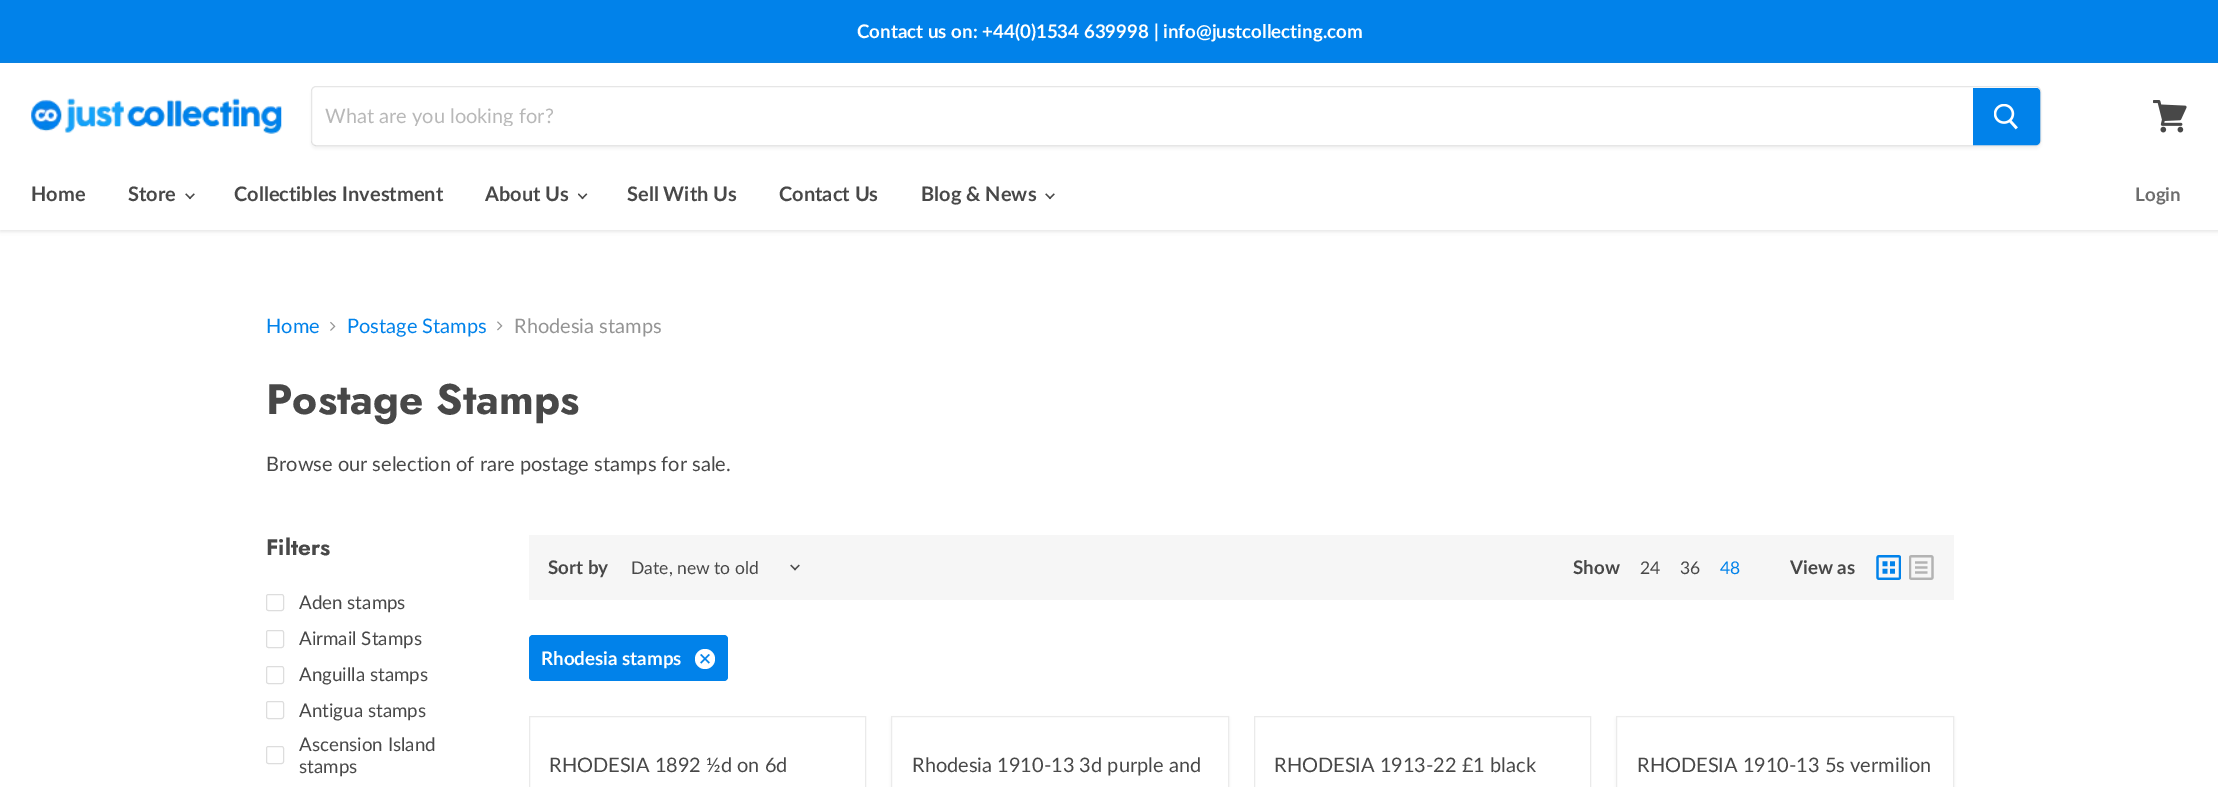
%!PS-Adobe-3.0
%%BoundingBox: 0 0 2218 787
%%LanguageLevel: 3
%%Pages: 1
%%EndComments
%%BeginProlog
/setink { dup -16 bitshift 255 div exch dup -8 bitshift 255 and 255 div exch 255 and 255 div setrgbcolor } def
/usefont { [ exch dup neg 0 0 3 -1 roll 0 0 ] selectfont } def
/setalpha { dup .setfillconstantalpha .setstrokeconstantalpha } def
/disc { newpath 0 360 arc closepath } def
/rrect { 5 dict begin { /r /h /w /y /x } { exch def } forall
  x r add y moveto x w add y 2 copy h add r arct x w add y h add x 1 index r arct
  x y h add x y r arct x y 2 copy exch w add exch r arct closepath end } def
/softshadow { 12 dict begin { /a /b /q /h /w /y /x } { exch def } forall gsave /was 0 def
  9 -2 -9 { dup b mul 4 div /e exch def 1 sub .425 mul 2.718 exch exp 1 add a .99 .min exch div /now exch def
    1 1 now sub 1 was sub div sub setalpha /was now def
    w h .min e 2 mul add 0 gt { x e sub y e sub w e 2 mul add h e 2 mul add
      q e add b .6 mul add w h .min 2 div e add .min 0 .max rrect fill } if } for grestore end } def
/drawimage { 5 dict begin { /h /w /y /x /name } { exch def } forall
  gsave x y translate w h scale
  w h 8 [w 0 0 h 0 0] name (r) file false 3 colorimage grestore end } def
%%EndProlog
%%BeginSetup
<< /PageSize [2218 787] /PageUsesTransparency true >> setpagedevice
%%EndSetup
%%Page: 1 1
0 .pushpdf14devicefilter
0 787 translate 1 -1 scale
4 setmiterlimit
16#FFFFFF setink
0 0 2218 787 rectfill
16#0182EA setink
0 0 2218 63 rectfill
/Lato-Bold 18.75 usefont
16#FFFFFF setink
857 38 moveto (Contact us on: +44\(0\)1534 639998 | info@justcollecting.com) show
gsave
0 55 moveto 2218 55 lineto 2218 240 lineto 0 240 lineto closepath 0 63 moveto 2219 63 lineto 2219 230 lineto 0 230 lineto closepath eoclip newpath
16#808080 setink
0 64 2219 167 0 2.5 0.25 softshadow
grestore
(img1.raw) 31 98 251 36 drawimage
gsave
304 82 moveto 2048 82 lineto 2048 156 lineto 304 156 lineto closepath 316 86 moveto 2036 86 lineto 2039 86 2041 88 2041 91 curveto 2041 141 lineto 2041 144 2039 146 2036 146 curveto 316 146 lineto 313 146 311 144 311 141 curveto 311 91 lineto 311 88 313 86 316 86 curveto closepath eoclip newpath
16#808080 setink
311 89 1730 60 5 2 0.11 softshadow
grestore
0.2 setalpha
16#808080 setink
311.5 86.5 1729 59 4.5 rrect stroke
gsave
325 103 1635 23 rectclip
/Lato-Regular 20 usefont
1 setalpha
16#B8B8B8 setink
325 123 moveto (What are you looking for?) show
grestore
1 setalpha
16#0182EA setink
1973.5 88.5 moveto 2036 88.5 lineto 2038 88.5 2039.5 90 2039.5 92 curveto 2039.5 141 lineto 2039.5 143 2038 144.5 2036 144.5 curveto 1973.5 144.5 lineto closepath gsave fill grestore
stroke
(img2.raw) 1994 104 24 26 drawimage
(img3.raw) 2153 100 34 33 drawimage
/Lato-Bold 20 usefont
16#484848 setink
31 201 moveto (Home) show
128 201 moveto (Store) show
(img4.raw) 185 193 10 7 drawimage
234 201 moveto (Collectibles Investment) show
485 201 moveto (About Us) show
(img5.raw) 578 193 10 7 drawimage
[
    [(Sell With Us) 627 201]
    [(Contact Us) 779 201]
    [(Blog & News) 921 201]
] { aload pop moveto show } forall
(img4.raw) 1045 193 10 7 drawimage
/Lato-Bold 18.75 usefont
16#6D6D6D setink
2135 201 moveto (Login) show
/Lato-Regular 20 usefont
16#0182EA setink
266 333 moveto (Home) show
(img6.raw) 330 321 6 10 drawimage
347 333 moveto (Postage Stamps) show
(img7.raw) 497 321 6 10 drawimage
16#949494 setink
514 333 moveto (Rhodesia stamps) show
/Jost-Bold 42.5 usefont
16#484848 setink
266 414 moveto (Postage Stamps) show
/Lato-Regular 20 usefont
266 471 moveto (Browse our selection of rare postage stamps for sale.) show
/Jost-Bold 22.5 usefont
266 555 moveto (Filters) show
16#DDDDDD setink
266.5 594.5 17 16 2 rrect stroke
/Lato-Regular 18.75 usefont
16#484848 setink
299 609 moveto (Aden stamps) show
16#DDDDDD setink
266.5 630.5 17 17 2 rrect stroke
16#484848 setink
299 645 moveto (Airmail Stamps) show
16#DDDDDD setink
266.5 666.5 17 17 2 rrect stroke
16#484848 setink
299 681 moveto (Anguilla stamps) show
16#DDDDDD setink
266.5 701.5 17 17 2 rrect stroke
16#484848 setink
299 717 moveto (Antigua stamps) show
16#DDDDDD setink
266.5 746.5 17 17 2 rrect stroke
16#484848 setink
299 751 moveto (Ascension Island) show
299 773 moveto (stamps) show
16#F6F6F6 setink
529 535 1425 65 rectfill
/Lato-Bold 18.75 usefont
16#484848 setink
548 574 moveto (Sort by) show
/Lato-Regular 17.5 usefont
631 574 moveto (Date, new to old) show
(img8.raw) 790 564 10 7 drawimage
/Lato-Bold 18.75 usefont
1573 574 moveto (Show) show
/Lato-Regular 17.5 usefont
1640 574 moveto (24) show
1680 574 moveto (36) show
16#0182EA setink
1720 574 moveto (48) show
/Lato-Bold 18.75 usefont
16#484848 setink
1790 574 moveto (View as) show
(img9.raw) 1876 555 25 25 drawimage
(img10.raw) 1909 555 25 25 drawimage
16#0182EA setink
529 635 199 46 4 rrect fill
16#FFFFFF setink
541 665 moveto (Rhodesia stamps) show
705 659 10 disc fill
(img11.raw) 700 654 10 10 drawimage
16#EAEAEA setink
529.5 716.5 336 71 rectstroke
/Lato-Regular 20 usefont
16#484848 setink
549 772 moveto (RHODESIA 1892 ½d on 6d) show
16#808080 setink
891 718 338 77 0 2.5 0.11 softshadow
16#FFFFFF setink
891.5 716.5 moveto 1228.5 716.5 lineto 1228.5 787.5 lineto 891.5 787.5 lineto closepath gsave fill grestore
16#EBEBEB setink
stroke
16#484848 setink
912 772 moveto (Rhodesia 1910-13 3d purple and) show
16#EAEAEA setink
1254.5 716.5 336 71 rectstroke
16#484848 setink
1274 772 moveto (RHODESIA 1913-22 £1 black) show
16#808080 setink
1616 718 338 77 0 2.5 0.11 softshadow
16#FFFFFF setink
1616.5 716.5 moveto 1953.5 716.5 lineto 1953.5 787.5 lineto 1616.5 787.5 lineto closepath gsave fill grestore
16#EBEBEB setink
stroke
16#484848 setink
1637 772 moveto (RHODESIA 1910-13 5s vermilion) show
.poppdf14devicefilter showpage
%%EOF
